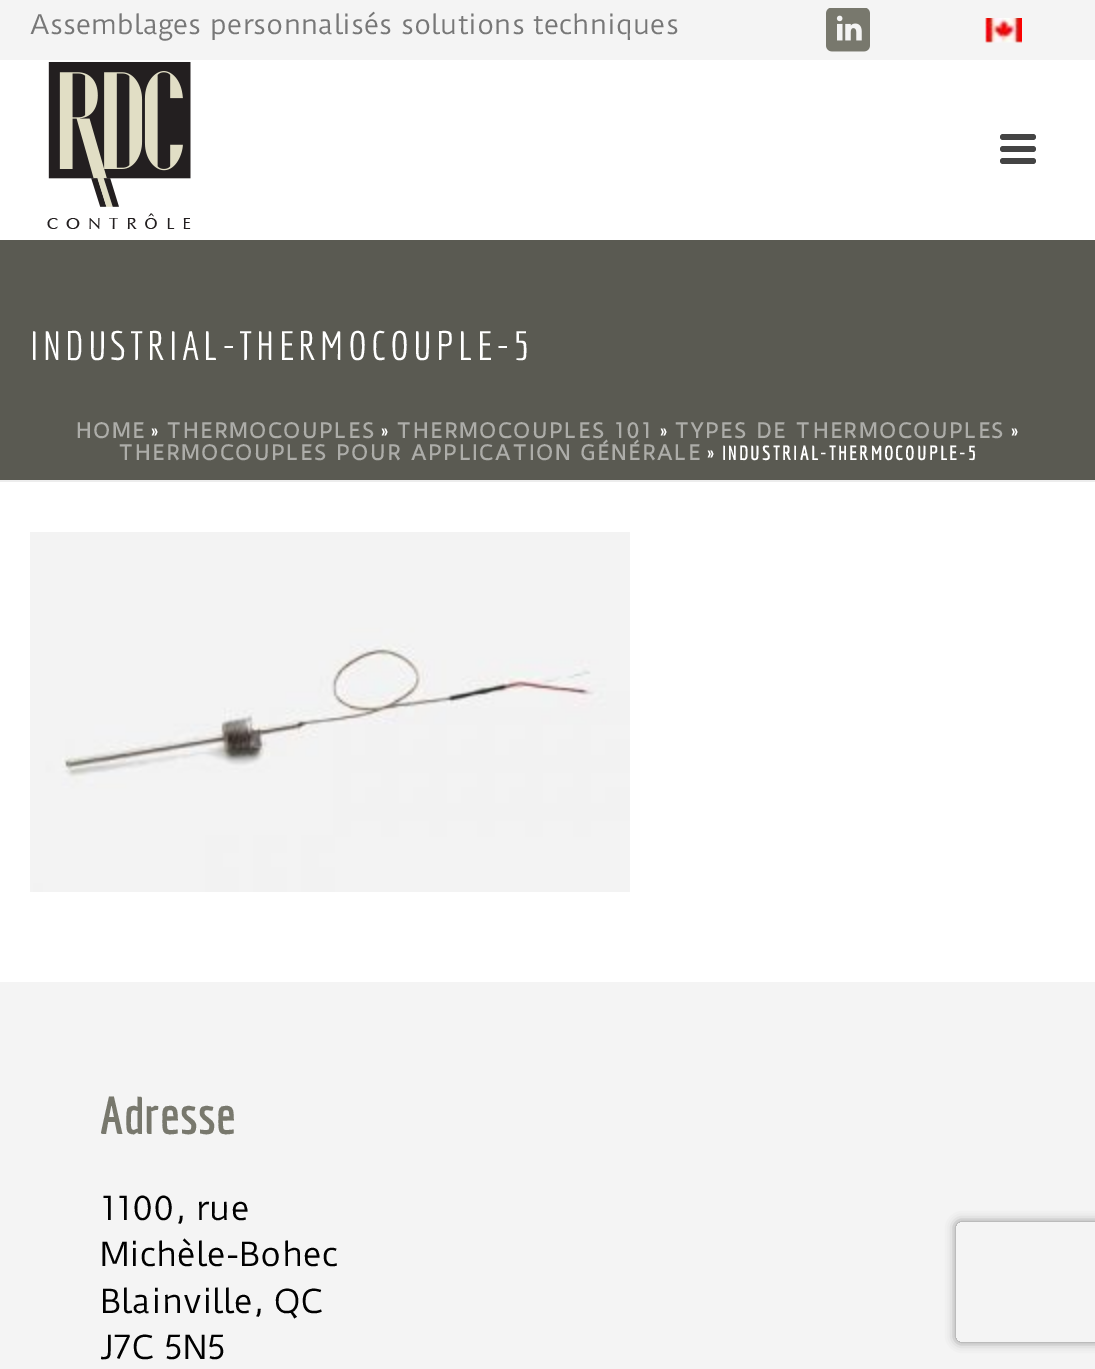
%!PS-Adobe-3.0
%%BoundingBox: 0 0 1095 1369
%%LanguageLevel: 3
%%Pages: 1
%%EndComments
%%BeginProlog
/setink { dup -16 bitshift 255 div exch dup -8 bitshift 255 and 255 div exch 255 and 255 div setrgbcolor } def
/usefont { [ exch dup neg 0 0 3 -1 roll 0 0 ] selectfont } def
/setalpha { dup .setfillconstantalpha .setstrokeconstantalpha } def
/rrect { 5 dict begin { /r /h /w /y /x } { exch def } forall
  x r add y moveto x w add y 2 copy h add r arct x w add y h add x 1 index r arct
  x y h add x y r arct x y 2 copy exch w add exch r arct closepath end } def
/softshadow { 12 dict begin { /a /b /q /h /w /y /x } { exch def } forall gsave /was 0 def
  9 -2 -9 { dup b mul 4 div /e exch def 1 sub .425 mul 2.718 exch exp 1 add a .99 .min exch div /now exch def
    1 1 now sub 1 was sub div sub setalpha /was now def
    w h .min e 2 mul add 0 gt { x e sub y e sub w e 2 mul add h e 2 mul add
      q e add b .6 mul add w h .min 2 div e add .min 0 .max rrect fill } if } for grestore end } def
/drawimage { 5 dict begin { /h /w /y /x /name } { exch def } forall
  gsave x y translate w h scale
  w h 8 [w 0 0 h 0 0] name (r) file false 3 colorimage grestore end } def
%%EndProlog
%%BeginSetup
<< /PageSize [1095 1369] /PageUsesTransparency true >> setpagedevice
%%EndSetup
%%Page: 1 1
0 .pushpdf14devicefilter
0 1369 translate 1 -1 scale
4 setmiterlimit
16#FFFFFF setink
0 0 1095 1369 rectfill
[
    [0 240 1095 240 16#5A5A52]
    [0 480 1095 2 16#EDEDED]
    [0 0 1095 60 16#F4F4F4]
] { aload pop setink rectfill } forall
/DuruSans-Regular 26 usefont
16#777777 setink
30 34 moveto (Assemblages personnalisés solutions techniques) show
(img1.raw) 826 8 44 44 drawimage
(img2.raw) 985 18 37 25 drawimage
(img3.raw) 47 62 144 167 drawimage
16#444444 setink
1000 134 36 6 3 rrect fill
1000 146 36 6 3 rrect fill
1000 158 36 6 3 rrect fill
/Economica-Regular 40 usefont
16#FFFFFF setink
30 360 moveto 4 0 (INDUSTRIAL-THERMOCOUPLE-5) ashow
/DuruSans-Bold 20 usefont
16#ADADA9 setink
76 438 moveto 2 0 (HOME) ashow
/Economica-Bold 20 usefont
16#FFFFFF setink
151 438 moveto 2 0 (») ashow
/DuruSans-Bold 20 usefont
16#ADADA9 setink
166 438 moveto 2 0 (THERMOCOUPLES) ashow
/Economica-Bold 20 usefont
16#FFFFFF setink
381 438 moveto 2 0 (») ashow
/DuruSans-Bold 20 usefont
16#ADADA9 setink
396 438 moveto 2 0 (THERMOCOUPLES 101) ashow
/Economica-Bold 20 usefont
16#FFFFFF setink
660 438 moveto 2 0 (») ashow
/DuruSans-Bold 20 usefont
16#ADADA9 setink
674 438 moveto 2 0 (TYPES DE THERMOCOUPLES) ashow
/Economica-Bold 20 usefont
16#FFFFFF setink
1011 438 moveto 2 0 (») ashow
/DuruSans-Bold 20 usefont
16#ADADA9 setink
118 460 moveto 2 0 (THERMOCOUPLES POUR APPLICATION GÉNÉRALE) ashow
/Economica-Bold 20 usefont
16#FFFFFF setink
707 460 moveto 2 0 (» INDUSTRIAL-THERMOCOUPLE-5) ashow
(img4.raw) 30 532 600 360 drawimage
16#F4F4F4 setink
0 982 1095 387 rectfill
/Economica-Bold 52 usefont
16#78786D setink
100 1134 moveto (Adresse) show
/DuruSans-Regular 32 usefont
16#000000 setink
[
    [(1100, rue) 100 1220]
    [(Michèle-Bohec) 100 1266]
    [(Blainville, QC) 100 1313]
    [(J7C 5N5) 100 1359]
] { aload pop moveto show } forall
gsave
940 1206 moveto 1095 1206 lineto 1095 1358 lineto 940 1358 lineto closepath 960 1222 moveto 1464 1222 lineto 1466 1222 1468 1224 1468 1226 curveto 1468 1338 lineto 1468 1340 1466 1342 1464 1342 curveto 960 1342 lineto 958 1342 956 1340 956 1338 curveto 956 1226 lineto 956 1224 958 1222 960 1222 curveto closepath eoclip newpath
16#808080 setink
956 1222 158 120 4 5 1 softshadow
grestore
.poppdf14devicefilter showpage
%%EOF
